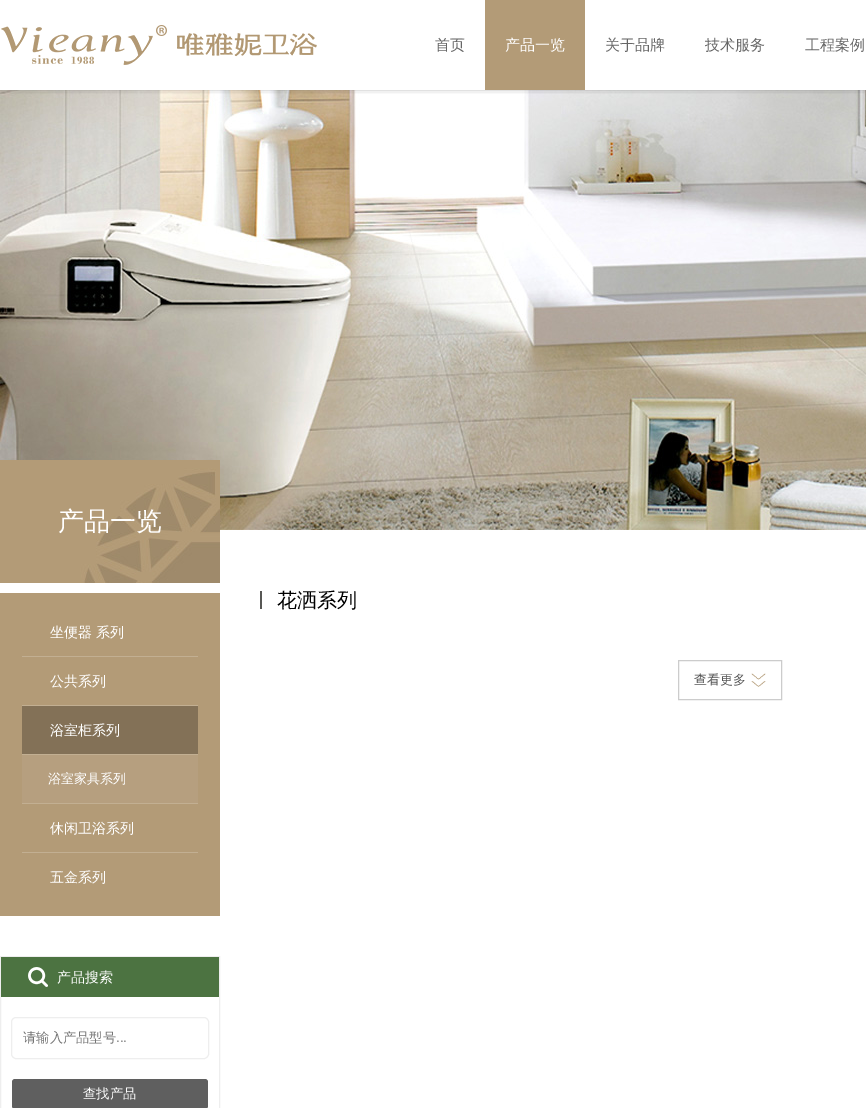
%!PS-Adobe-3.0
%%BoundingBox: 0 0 866 1108
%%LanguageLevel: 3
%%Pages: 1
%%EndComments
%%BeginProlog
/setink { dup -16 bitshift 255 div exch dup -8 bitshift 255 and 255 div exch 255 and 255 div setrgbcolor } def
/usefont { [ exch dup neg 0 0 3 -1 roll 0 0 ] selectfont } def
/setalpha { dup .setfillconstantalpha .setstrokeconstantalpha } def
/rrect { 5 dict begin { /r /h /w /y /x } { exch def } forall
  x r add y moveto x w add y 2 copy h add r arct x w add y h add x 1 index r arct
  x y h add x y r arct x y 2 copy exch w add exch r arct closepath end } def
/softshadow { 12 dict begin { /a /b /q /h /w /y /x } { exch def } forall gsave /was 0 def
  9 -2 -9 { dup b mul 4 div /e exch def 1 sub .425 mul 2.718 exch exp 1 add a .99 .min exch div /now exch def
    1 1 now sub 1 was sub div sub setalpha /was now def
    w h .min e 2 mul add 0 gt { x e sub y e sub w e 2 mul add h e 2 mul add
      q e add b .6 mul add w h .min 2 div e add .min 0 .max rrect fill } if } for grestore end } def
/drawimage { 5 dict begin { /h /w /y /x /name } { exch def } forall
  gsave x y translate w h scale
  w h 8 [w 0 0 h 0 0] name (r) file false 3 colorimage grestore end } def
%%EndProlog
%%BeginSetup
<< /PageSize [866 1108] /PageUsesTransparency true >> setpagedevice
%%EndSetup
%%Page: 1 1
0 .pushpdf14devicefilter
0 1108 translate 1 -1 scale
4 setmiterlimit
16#FFFFFF setink
0 0 866 1108 rectfill
(img2.raw) 0 90 866 440 drawimage
gsave
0 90 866 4 rectclip
16#333333 setink
0 -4 866 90 0 4 1 softshadow
grestore
(img1.raw) 1 25 316 40 drawimage
/WenQuanYiZenHei-Medium 15 usefont
16#666666 setink
435 50 moveto (首页) show
16#B39B77 setink
485 0 100 90 rectfill
16#FFFFFF setink
505 50 moveto (产品一览) show
16#666666 setink
[
    [(关于品牌) 605 50]
    [(技术服务) 705 50]
    [(工程案例) 805 50]
] { aload pop moveto show } forall
(img3.raw) 0 460 220 123 drawimage
/WenQuanYiZenHei-Medium 26 usefont
16#FFFFFF setink
58 530 moveto (产品一览) show
16#B39B77 setink
0 593 220 323 rectfill
16#C2AF92 setink
22 656 176 1 rectfill
/WenQuanYiZenHei-Medium 14 usefont
16#FFFFFF setink
50 637 moveto (坐便器) show
96 637 moveto (系列) show
16#C2AF92 setink
22 705 176 1 rectfill
16#FFFFFF setink
50 686 moveto (公共系列) show
16#C2AF92 setink
22 754 176 1 rectfill
16#837157 setink
22 706 176 48 rectfill
16#FFFFFF setink
50 735 moveto (浴室柜系列) show
16#B69F7F setink
22 755 176 48 rectfill
16#C2AF92 setink
22 803 176 1 rectfill
/WenQuanYiZenHei-Medium 13 usefont
16#FFFFFF setink
48 783 moveto (浴室家具系列) show
16#C2AF92 setink
22 852 176 1 rectfill
/WenQuanYiZenHei-Medium 14 usefont
16#FFFFFF setink
50 833 moveto (休闲卫浴系列) show
50 882 moveto (五金系列) show
16#EEEEEE setink
0.5 956.5 219 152 rectstroke
16#4C7341 setink
1 957 218 40 rectfill
(img4.raw) 28 967 20 20 drawimage
16#FFFFFF setink
57 982 moveto (产品搜索) show
16#EEEEEE setink
11.5 1017.5 197 41 4.5 rrect stroke
/WenQuanYiZenHei-Medium 13.25 usefont
16#757575 setink
23 1042 moveto (请输入产品型号) show
/LiberationSans-Regular 13.25 usefont
116 1042 moveto (...) show
16#5F5F5F setink
12 1079 196 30 3 rrect fill
/WenQuanYiZenHei-Medium 13.25 usefont
16#FFFFFF setink
83 1098 moveto (查找产品) show
16#575755 setink
260 591 2 18 rectfill
/WenQuanYiZenHei-Medium 20 usefont
16#000000 setink
277 607 moveto (花洒系列) show
16#CCCCCC setink
678.5 660.5 103 39 rectstroke
/WenQuanYiZenHei-Medium 13 usefont
16#555555 setink
694 684 moveto (查看更多) show
(img5.raw) 751 673 15 14 drawimage
.poppdf14devicefilter showpage
%%EOF
